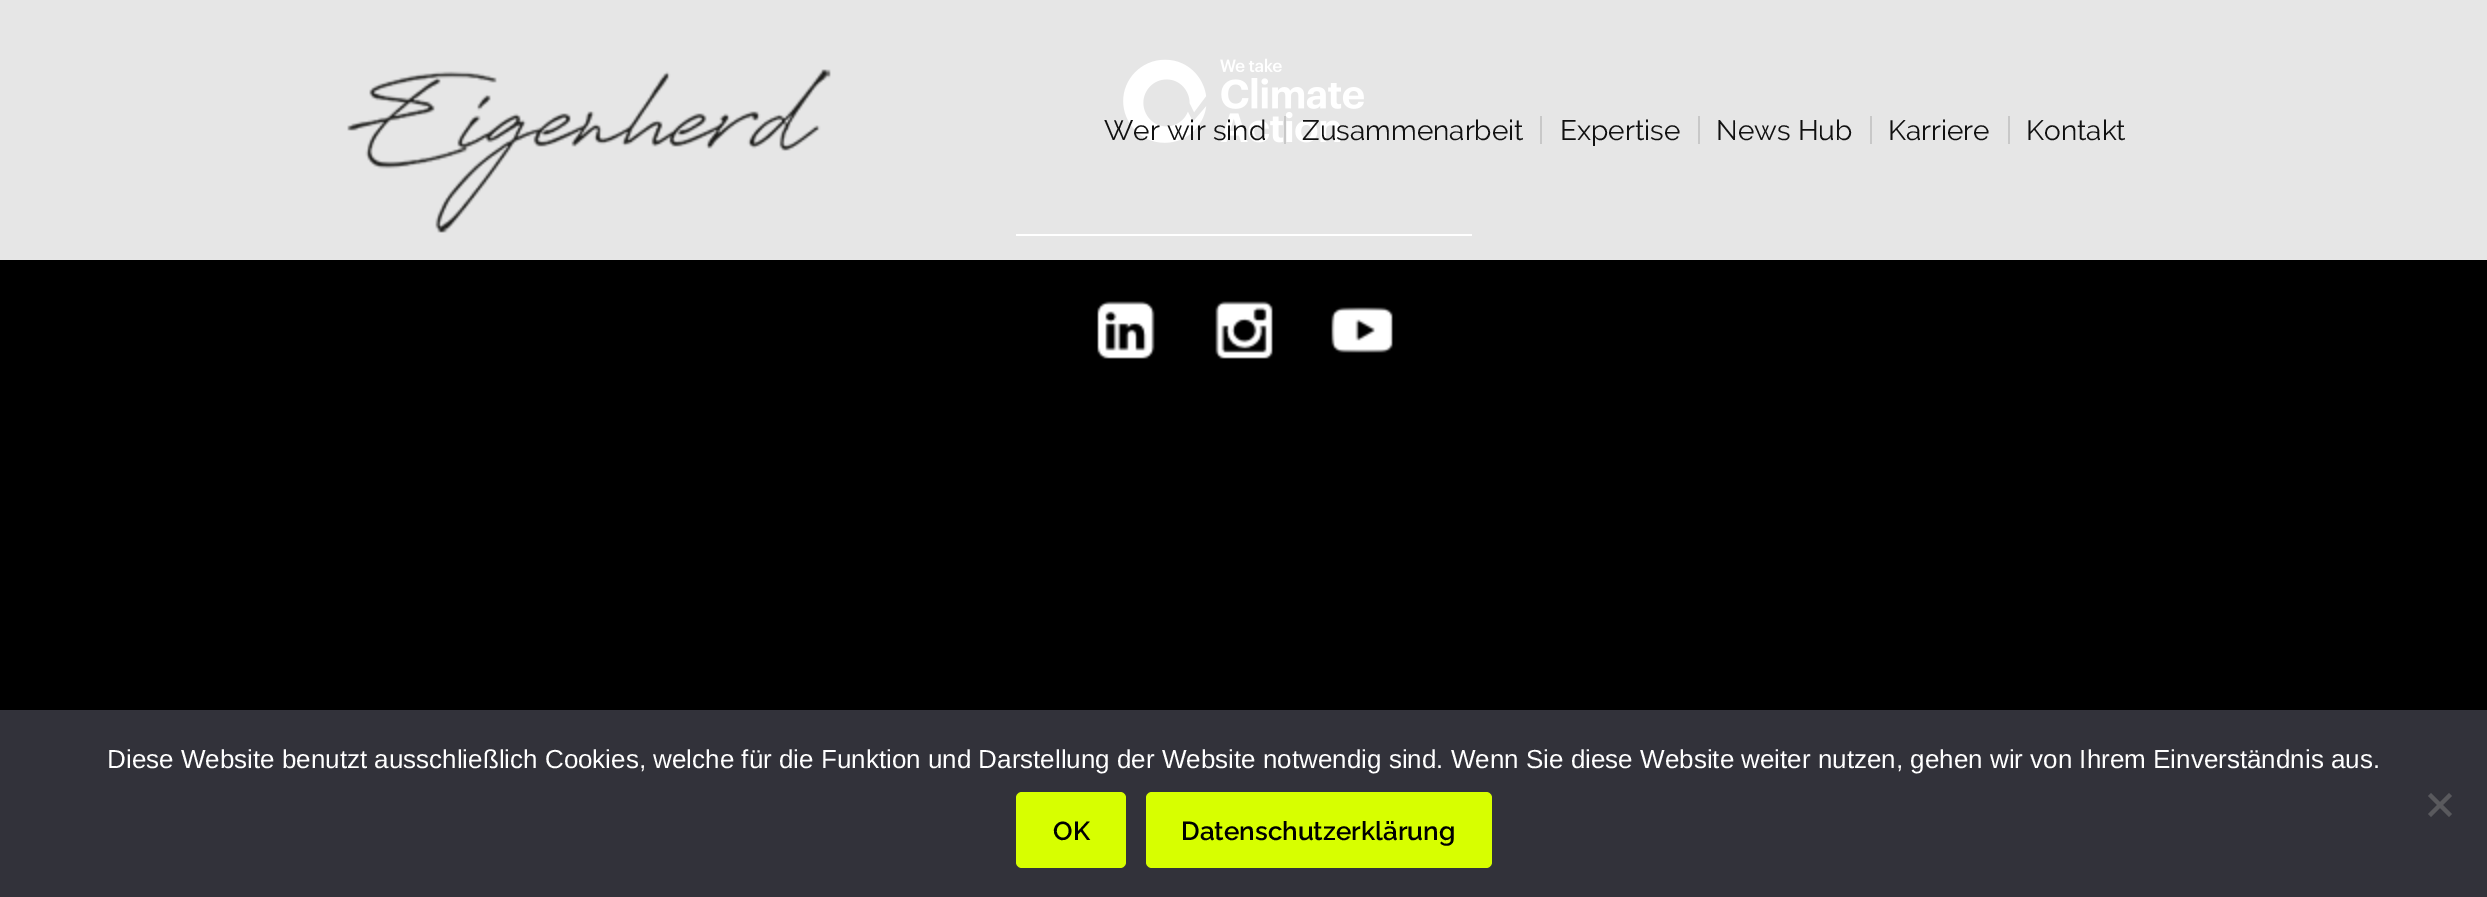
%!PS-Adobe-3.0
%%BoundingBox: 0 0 2487 897
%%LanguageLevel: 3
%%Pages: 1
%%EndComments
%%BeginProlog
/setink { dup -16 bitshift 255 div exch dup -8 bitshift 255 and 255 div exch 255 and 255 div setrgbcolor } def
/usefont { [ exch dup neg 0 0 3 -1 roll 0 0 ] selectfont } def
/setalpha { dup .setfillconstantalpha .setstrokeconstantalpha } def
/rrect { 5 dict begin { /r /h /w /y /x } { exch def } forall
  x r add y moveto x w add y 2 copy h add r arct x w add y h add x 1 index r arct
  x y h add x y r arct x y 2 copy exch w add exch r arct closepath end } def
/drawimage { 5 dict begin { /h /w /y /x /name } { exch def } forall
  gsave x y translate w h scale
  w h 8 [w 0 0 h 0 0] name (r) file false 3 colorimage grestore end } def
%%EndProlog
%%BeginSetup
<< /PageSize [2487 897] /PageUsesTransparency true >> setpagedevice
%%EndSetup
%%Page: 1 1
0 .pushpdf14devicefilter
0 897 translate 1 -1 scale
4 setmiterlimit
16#000000 setink
0 0 2487 897 rectfill
(img1.raw) 1123 58 241 85 drawimage
16#FFFFFF setink
1016 234 456 2 rectfill
(img2.raw) 1097 301 58 58 drawimage
(img3.raw) 1215 301 58 58 drawimage
(img4.raw) 1331 307 62 46 drawimage
0.9 setalpha
0 0 2487 260 rectfill
1 setalpha
(img5.raw) 347 69 484 164 drawimage
/Raleway-Regular 28 usefont
16#111111 setink
1104 140 moveto (Wer wir sind) show
16#C8C8C8 setink
1284 116 2 28 rectfill
16#111111 setink
1302 140 moveto (Zusammenarbeit) show
16#C8C8C8 setink
1540 116 2 28 rectfill
16#111111 setink
1560 140 moveto (Expertise) show
16#C8C8C8 setink
1698 116 2 28 rectfill
16#111111 setink
1716 140 moveto (News Hub) show
16#C8C8C8 setink
1870 116 2 28 rectfill
16#111111 setink
1888 140 moveto (Karriere) show
16#C8C8C8 setink
2008 116 2 28 rectfill
16#111111 setink
2026 140 moveto (Kontakt) show
16#32323A setink
0 710 2487 187 rectfill
/LiberationSans-Regular 26 usefont
16#FFFFFF setink
107 768 moveto (Diese Website benutzt ausschließlich Cookies, welche für die Funktion und Darstellung der Website notwendig sind. Wenn Sie diese Website weiter nutzen, gehen wir von Ihrem Einverständnis aus.) show
16#59595D setink
2449 793 moveto 2452 796 lineto 2431 817 lineto 2428 814 lineto closepath fill
2428 796 moveto 2431 793 lineto 2452 814 lineto 2449 817 lineto closepath fill
16#D7FF00 setink
1016 792 110 76 6 rrect fill
/Raleway-SemiBold 26 usefont
16#000000 setink
1053 840 moveto (OK) show
16#D7FF00 setink
1146 792 346 76 6 rrect fill
16#000000 setink
1181 840 moveto (Datenschutzerklärung) show
.poppdf14devicefilter showpage
%%EOF
